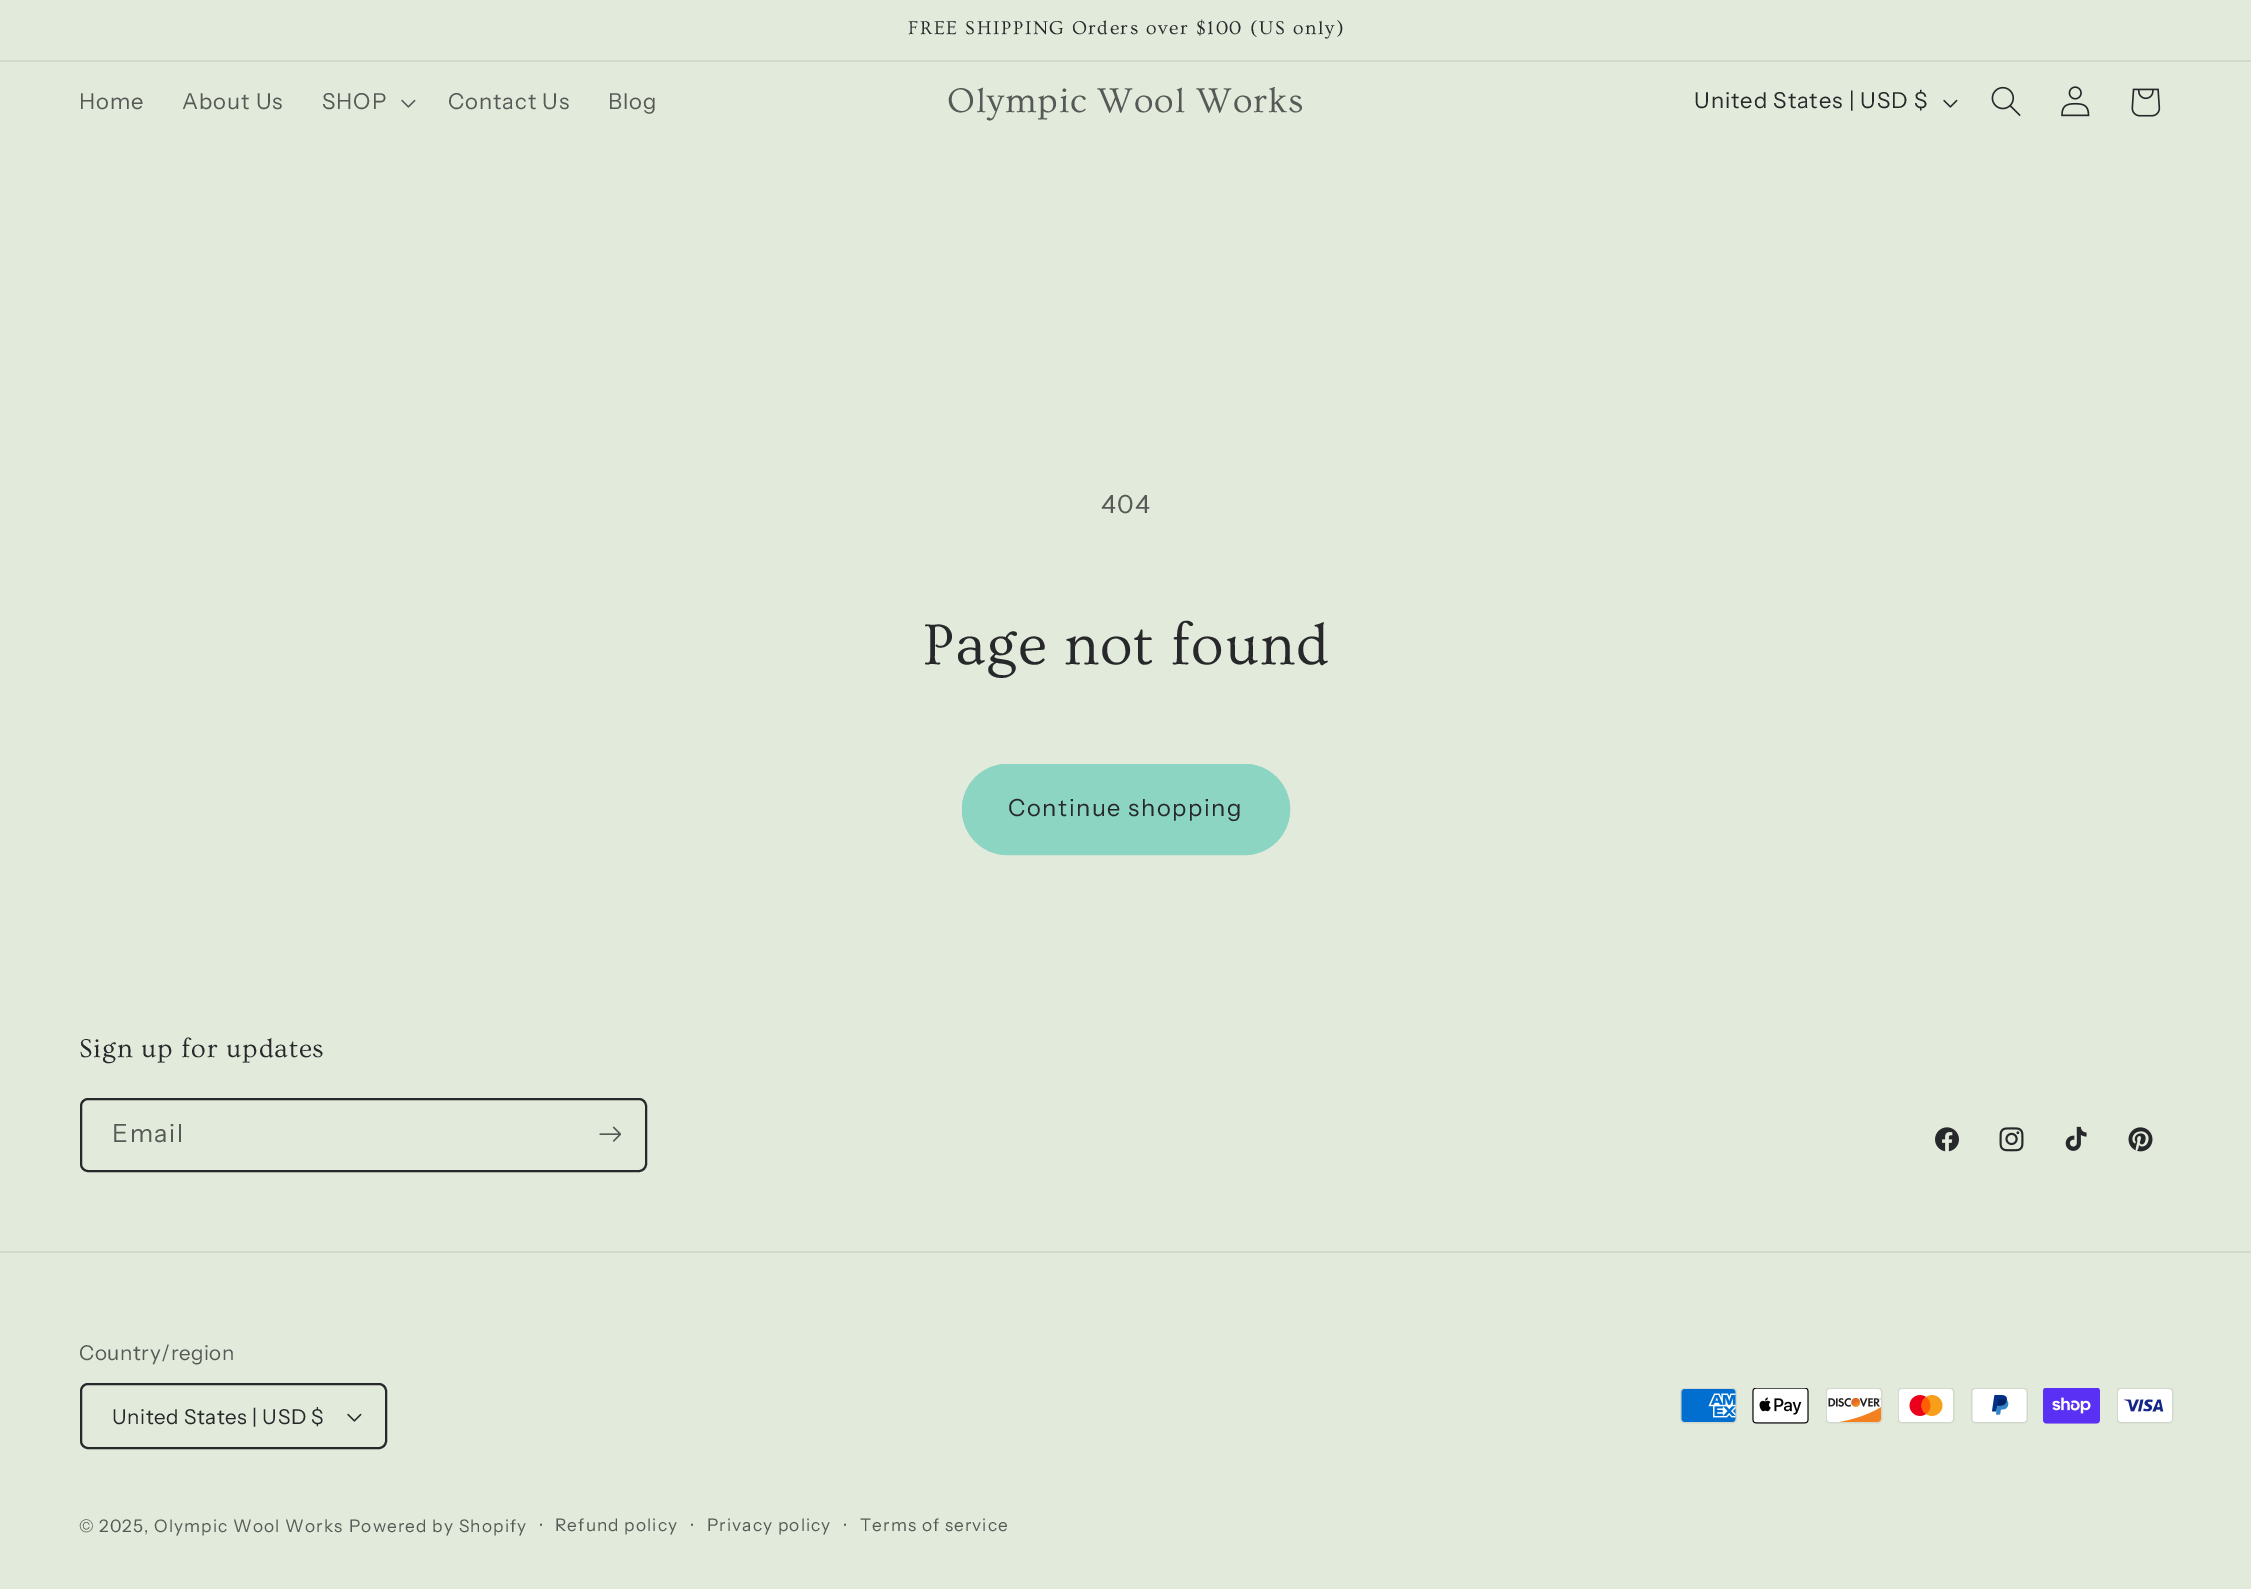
%!PS-Adobe-3.0
%%BoundingBox: 0 0 2251 1589
%%LanguageLevel: 3
%%Pages: 1
%%EndComments
%%BeginProlog
/setink { dup -16 bitshift 255 div exch dup -8 bitshift 255 and 255 div exch 255 and 255 div setrgbcolor } def
/usefont { [ exch dup neg 0 0 3 -1 roll 0 0 ] selectfont } def
/rrect { 5 dict begin { /r /h /w /y /x } { exch def } forall
  x r add y moveto x w add y 2 copy h add r arct x w add y h add x 1 index r arct
  x y h add x y r arct x y 2 copy exch w add exch r arct closepath end } def
/drawimage { 5 dict begin { /h /w /y /x /name } { exch def } forall
  gsave x y translate w h scale
  w h 8 [w 0 0 h 0 0] name (r) file false 3 colorimage grestore end } def
%%EndProlog
%%BeginSetup
<< /PageSize [2251 1589] >> setpagedevice
%%EndSetup
%%Page: 1 1
0 1589 translate 1 -1 scale
4 setmiterlimit
16#E2EADB setink
0 0 2251 1589 rectfill
16#D3DACD setink
0 60 2251 2 rectfill
/Ovo-Regular 19.5 usefont
16#27282A setink
908 34 moveto 1.6 0 (FREE SHIPPING Orders over $100 \(US only\)) ashow
/InstrumentSans-Regular 22 usefont
16#565956 setink
79 109 moveto 0.95 0 (Home) ashow
182 109 moveto 0.95 0 (About Us) ashow
322 109 moveto 0.95 0 (SHOP) ashow
(img1.raw) 401 99 15 9 drawimage
448 109 moveto 0.95 0 (Contact Us) ashow
608 109 moveto 0.95 0 (Blog) ashow
/Ovo-Regular 36 usefont
947 112 moveto 0.9 0 (Olympic Wool Works) ashow
/InstrumentSans-Regular 22 usefont
16#27282A setink
1694 108 moveto 0.95 0 (United States | USD $) ashow
(img2.raw) 1943 99 15 9 drawimage
(img3.raw) 1991 86 30 30 drawimage
(img4.raw) 2061 86 29 31 drawimage
(img5.raw) 2131 88 30 29 drawimage
/InstrumentSans-Regular 25 usefont
16#565956 setink
1101 513 moveto 0.95 0 (404) ashow
/Ovo-Regular 60 usefont
16#27282A setink
923 664 moveto 0.9 0 (Page not found) ashow
16#8CD5C3 setink
962 764 328 91 45.5 rrect fill
11 setlinewidth
967.5 769.5 317 80 40 rrect stroke
/InstrumentSans-Regular 23.6 usefont
16#27282A setink
1008 816 moveto 1.6 0 (Continue shopping) ashow
/Ovo-Regular 27 usefont
79 1057 moveto 0.9 0 (Sign up for updates) ashow
2 setlinewidth
81 1099 565 72 7 rrect stroke
/InstrumentSans-Regular 25 usefont
16#565956 setink
112 1142 moveto 1.6 0 (Email) ashow
(img6.raw) 599 1126 22 16 drawimage
(img7.raw) 1935 1127 24 25 drawimage
(img8.raw) 1999 1127 25 25 drawimage
(img9.raw) 2065 1126 22 25 drawimage
(img10.raw) 2128 1127 25 25 drawimage
16#D3DACD setink
0 1251 2251 2 rectfill
/InstrumentSans-Regular 20.5 usefont
16#565956 setink
79 1360 moveto 0.6 0 (Country/region) ashow
(img2.raw) 347 1413 15 9 drawimage
16#27282A setink
81 1384 305 64 7 rrect stroke
112 1424 moveto 0.6 0 (United States | USD $) ashow
(img11.raw) 1680 1388 57 36 drawimage
(img12.raw) 1752 1388 57 36 drawimage
(img13.raw) 1826 1388 57 36 drawimage
(img14.raw) 1898 1388 57 36 drawimage
(img15.raw) 1971 1388 57 36 drawimage
(img16.raw) 2043 1388 57 36 drawimage
(img17.raw) 2117 1388 57 36 drawimage
/InstrumentSans-Regular 17.3 usefont
16#565956 setink
79 1532 moveto 1.1 0 (© 2025, Olympic Wool Works) ashow
349 1532 moveto 1.1 0 (Powered by Shopify) ashow
/InstrumentSans-Regular 19 usefont
540 1532 moveto 1.1 0 (·) ashow
/InstrumentSans-Regular 17.3 usefont
555 1531 moveto 1.1 0 (Refund policy) ashow
/InstrumentSans-Regular 19 usefont
691 1532 moveto 1.1 0 (·) ashow
/InstrumentSans-Regular 17.3 usefont
707 1531 moveto 1.1 0 (Privacy policy) ashow
/InstrumentSans-Regular 19 usefont
844 1532 moveto 1.1 0 (·) ashow
/InstrumentSans-Regular 17.3 usefont
860 1531 moveto 1.1 0 (Terms of service) ashow
showpage
%%EOF
